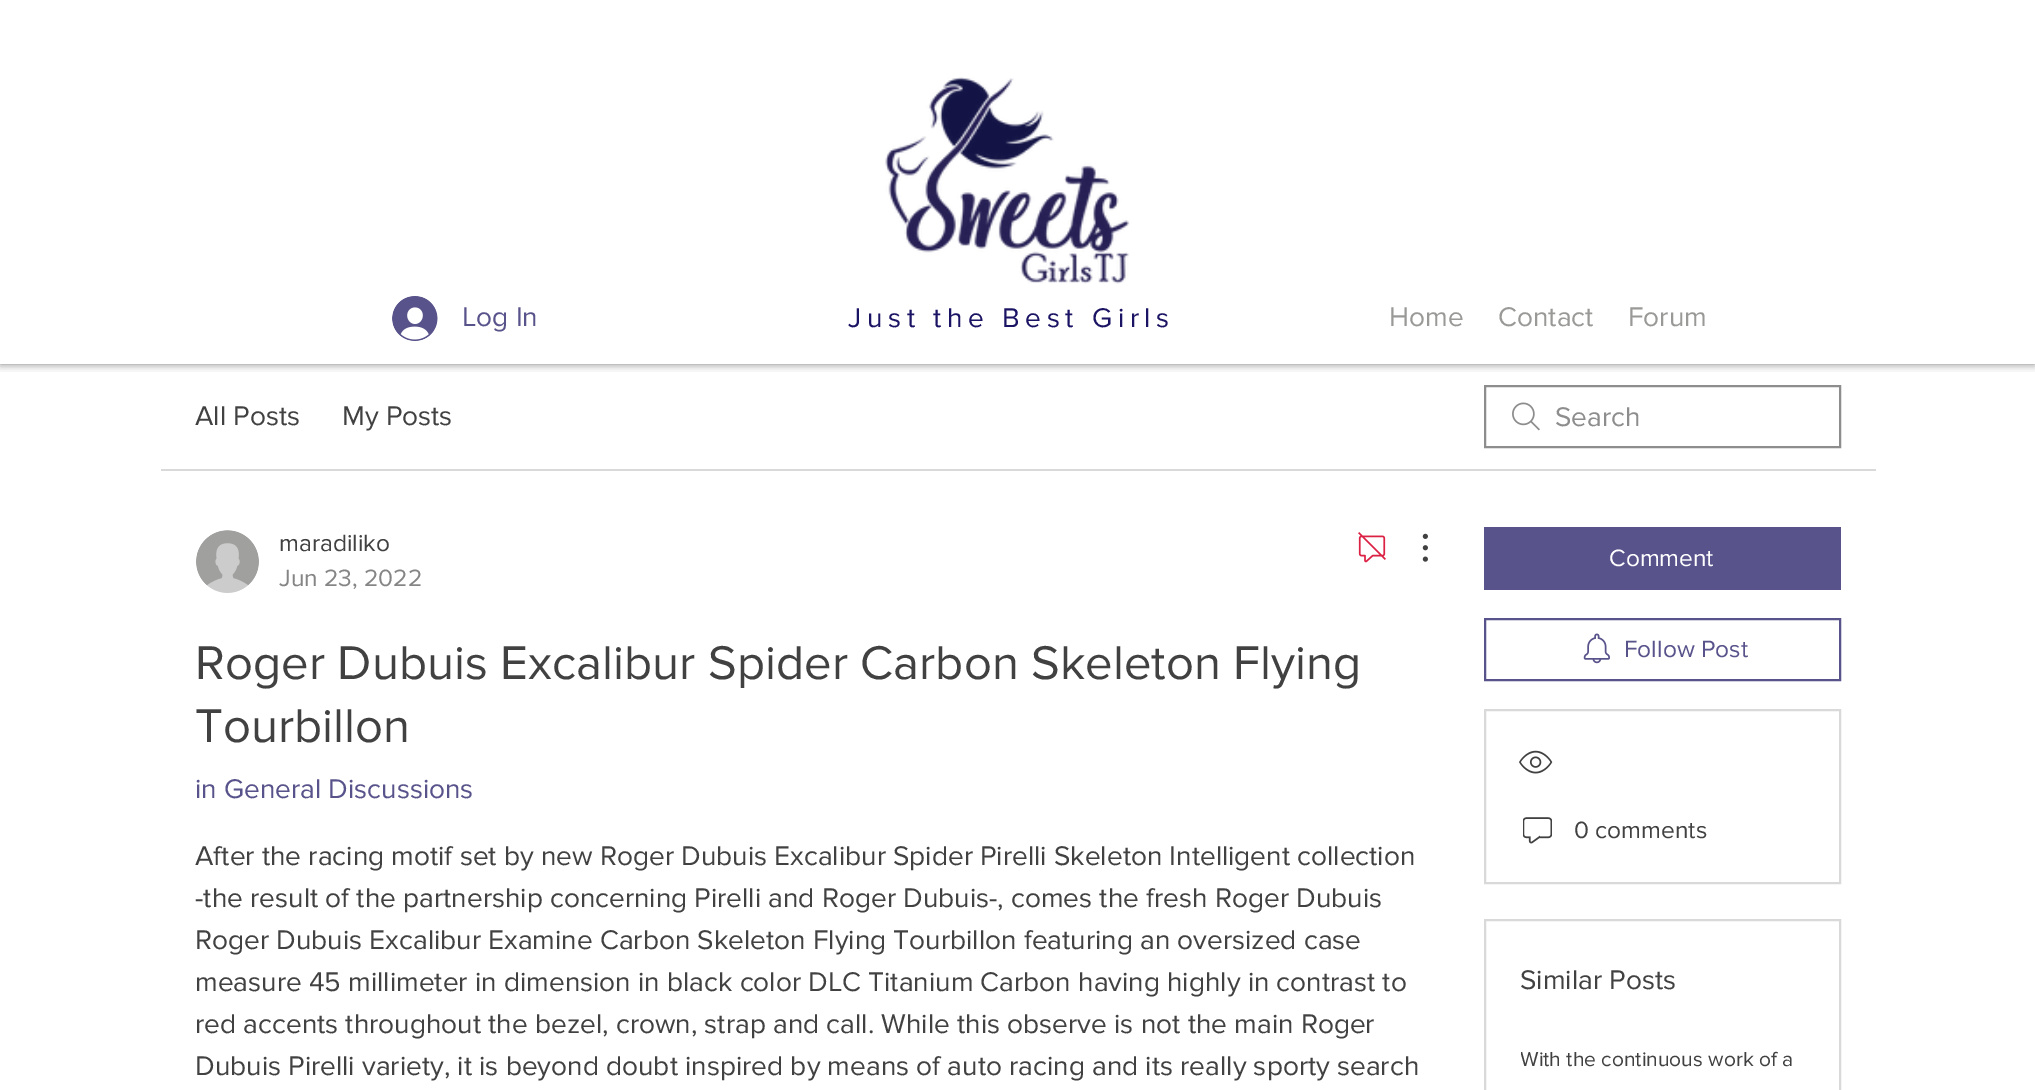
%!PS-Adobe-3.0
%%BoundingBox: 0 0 2035 1090
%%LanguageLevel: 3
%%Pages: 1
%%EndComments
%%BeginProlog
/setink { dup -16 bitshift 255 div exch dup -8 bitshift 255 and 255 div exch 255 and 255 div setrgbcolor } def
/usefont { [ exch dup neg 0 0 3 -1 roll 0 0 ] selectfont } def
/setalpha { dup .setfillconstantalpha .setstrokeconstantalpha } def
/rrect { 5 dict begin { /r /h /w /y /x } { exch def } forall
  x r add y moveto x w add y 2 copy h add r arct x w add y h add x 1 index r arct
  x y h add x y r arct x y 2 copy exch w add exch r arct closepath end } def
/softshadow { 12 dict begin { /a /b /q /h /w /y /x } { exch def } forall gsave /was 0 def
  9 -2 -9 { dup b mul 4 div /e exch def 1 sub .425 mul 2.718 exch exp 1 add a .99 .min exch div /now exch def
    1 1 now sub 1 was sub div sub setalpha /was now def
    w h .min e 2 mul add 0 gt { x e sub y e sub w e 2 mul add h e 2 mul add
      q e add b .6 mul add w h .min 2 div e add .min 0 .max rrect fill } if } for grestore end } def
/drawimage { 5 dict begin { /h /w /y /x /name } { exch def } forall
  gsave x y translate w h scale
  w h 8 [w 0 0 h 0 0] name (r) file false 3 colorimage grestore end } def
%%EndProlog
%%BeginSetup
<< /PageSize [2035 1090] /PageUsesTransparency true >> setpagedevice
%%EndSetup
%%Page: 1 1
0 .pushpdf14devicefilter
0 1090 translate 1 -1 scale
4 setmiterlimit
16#FFFFFF setink
0 0 2035 1090 rectfill
gsave
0 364 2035 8 rectclip
16#000000 setink
0 0 2035 364 0 4.5 0.5 softshadow
grestore
(img1.raw) 885 77 245 207 drawimage
(img2.raw) 392 296 46 45 drawimage
/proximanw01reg-Regular 28 usefont
16#58538B setink
462 326 moveto (Log In) show
16#1B1464 setink
848 327 moveto 5.6 0 (Just the Best Girls) ashow
16#999997 setink
[
    [(Home) 1389 326]
    [(Contact) 1498 326]
    [(Forum) 1628 326]
] { aload pop moveto show } forall
16#D9D9D9 setink
161 469 1715 2 rectfill
16#414141 setink
195 425 moveto (All Posts) show
342 425 moveto (My Posts) show
(img3.raw) 1512 402 28 29 drawimage
16#8D8D8D setink
2 setlinewidth
1485 386 355 61 rectstroke
1555 426 moveto (Search) show
(img4.raw) 196 530 63 63 drawimage
/proximanw01reg-Regular 24.5 usefont
16#414141 setink
279 551 moveto (maradiliko) show
16#858585 setink
279 586 moveto (Jun 23, 2022) show
(img5.raw) 1358 532 28 31 drawimage
(img6.raw) 1422 533 6 29 drawimage
/proximanw01reg-Regular 49 usefont
16#414141 setink
195 679 moveto (Roger Dubuis Excalibur Spider Carbon Skeleton Flying) show
195 742 moveto (Tourbillon) show
/proximanw01reg-Regular 28 usefont
16#58538B setink
195 798 moveto (in General Discussions) show
16#414141 setink
[
    [(After the racing motif set by new Roger Dubuis Excalibur Spider Pirelli Skeleton Intelligent collection) 195 865]
    [(-the result of the partnership concerning Pirelli and Roger Dubuis-, comes the fresh Roger Dubuis) 195 907]
    [(Roger Dubuis Excalibur Examine Carbon Skeleton Flying Tourbillon featuring an oversized case) 195 949]
    [(measure 45 millimeter in dimension in black color DLC Titanium Carbon having highly in contrast to) 195 991]
    [(red accents throughout the bezel, crown, strap and call. While this observe is not the main Roger) 195 1033]
    [(Dubuis Pirelli variety, it is beyond doubt inspired by means of auto racing and its really sporty search) 195 1075]
] { aload pop moveto show } forall
16#58538B setink
1484 527 357 63 rectfill
/proximanw01reg-Regular 24.5 usefont
16#FFFFFF setink
1609 566 moveto (Comment) show
16#58538B setink
1485 619 355 61 rectstroke
(img7.raw) 1583 633 27 31 drawimage
1624 657 moveto (Follow Post) show
16#D9D9D9 setink
1485 710 355 173 rectstroke
(img8.raw) 1519 750 34 24 drawimage
(img9.raw) 1523 817 29 27 drawimage
16#414141 setink
1574 838 moveto (0 comments) show
16#D9D9D9 setink
1485 920 355 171 rectstroke
/proximanw01reg-Regular 28 usefont
16#414141 setink
1520 989 moveto (Similar Posts) show
gsave
1521 1040 283 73 rectclip
/proximanw01reg-Regular 21 usefont
1520 1066 moveto (With the continuous work of a) show
grestore
.poppdf14devicefilter showpage
%%EOF
